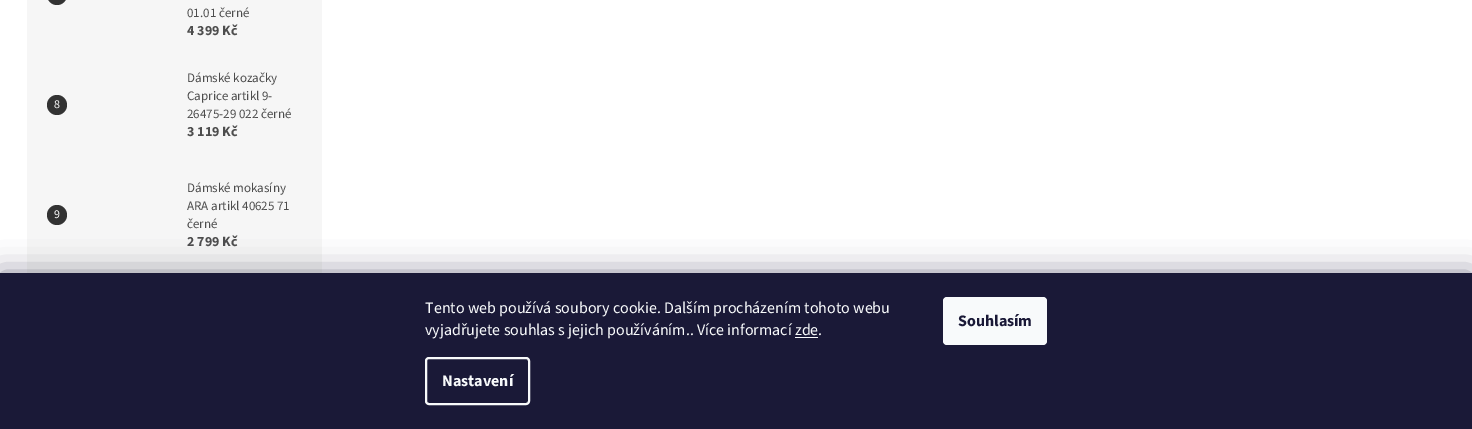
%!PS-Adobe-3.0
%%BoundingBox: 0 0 1472 429
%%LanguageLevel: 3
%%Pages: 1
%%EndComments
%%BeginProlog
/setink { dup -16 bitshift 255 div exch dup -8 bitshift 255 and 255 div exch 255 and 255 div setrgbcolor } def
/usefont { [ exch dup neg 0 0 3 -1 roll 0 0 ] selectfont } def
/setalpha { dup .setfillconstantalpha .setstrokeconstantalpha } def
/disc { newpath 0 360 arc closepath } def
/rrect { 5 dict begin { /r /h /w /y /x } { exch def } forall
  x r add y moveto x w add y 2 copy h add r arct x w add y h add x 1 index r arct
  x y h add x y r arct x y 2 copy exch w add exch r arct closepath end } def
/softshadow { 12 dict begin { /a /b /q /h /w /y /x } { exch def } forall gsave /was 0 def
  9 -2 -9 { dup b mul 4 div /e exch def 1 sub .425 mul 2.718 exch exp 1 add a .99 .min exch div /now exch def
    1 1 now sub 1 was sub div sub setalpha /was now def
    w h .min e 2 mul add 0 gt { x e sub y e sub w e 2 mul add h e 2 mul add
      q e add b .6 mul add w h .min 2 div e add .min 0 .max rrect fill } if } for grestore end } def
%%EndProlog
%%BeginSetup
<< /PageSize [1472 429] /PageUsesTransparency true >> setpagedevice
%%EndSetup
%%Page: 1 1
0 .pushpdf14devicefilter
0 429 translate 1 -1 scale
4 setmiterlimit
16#FFFFFF setink
0 0 1472 429 rectfill
16#F6F6F6 setink
27 0 295 273 rectfill
16#333333 setink
47 -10 20 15 10 rrect fill
/SourceSans3-Regular 13 usefont
16#4D4D4D setink
187 17 moveto (01.01 černé) show
/SourceSans3-Bold 14 usefont
187 35 moveto (4 399 Kč) show
16#333333 setink
57 105 10 disc fill
/SourceSans3-Regular 12 usefont
16#FFFFFF setink
54 108 moveto (8) show
/SourceSans3-Regular 13 usefont
16#4D4D4D setink
[
    [(Dámské kozačky) 187 82]
    [(Caprice artikl 9-) 187 100]
    [(26475-29 022 černé) 187 118]
] { aload pop moveto show } forall
/SourceSans3-Bold 14 usefont
187 136 moveto (3 119 Kč) show
16#333333 setink
57 215 10 disc fill
/SourceSans3-Regular 12 usefont
16#FFFFFF setink
54 218 moveto (9) show
/SourceSans3-Regular 13 usefont
16#4D4D4D setink
[
    [(Dámské mokasíny) 187 192]
    [(ARA artikl 40625 71) 187 210]
    [(černé) 187 228]
] { aload pop moveto show } forall
/SourceSans3-Bold 14 usefont
187 246 moveto (2 799 Kč) show
16#1B1939 setink
0 273 1472 156 0 15 0.5 softshadow
16#1A1937 setink
0 273 1472 156 rectfill
/SourceSans3-Regular 16 usefont
16#F8FAFB setink
425 313 moveto (Tento web používá soubory cookie. Dalším procházením tohoto webu) show
425 335 moveto (vyjadřujete souhlas s jejich používáním.. Více informací zde.) show
795 337 23 1 rectfill
2 setlinewidth
426 358 103 46 3 rrect stroke
/SourceSans3-Bold 16 usefont
442 386 moveto (Nastavení) show
943 297 104 48 4 rrect fill
16#1A1937 setink
958 326 moveto (Souhlasím) show
.poppdf14devicefilter showpage
%%EOF
